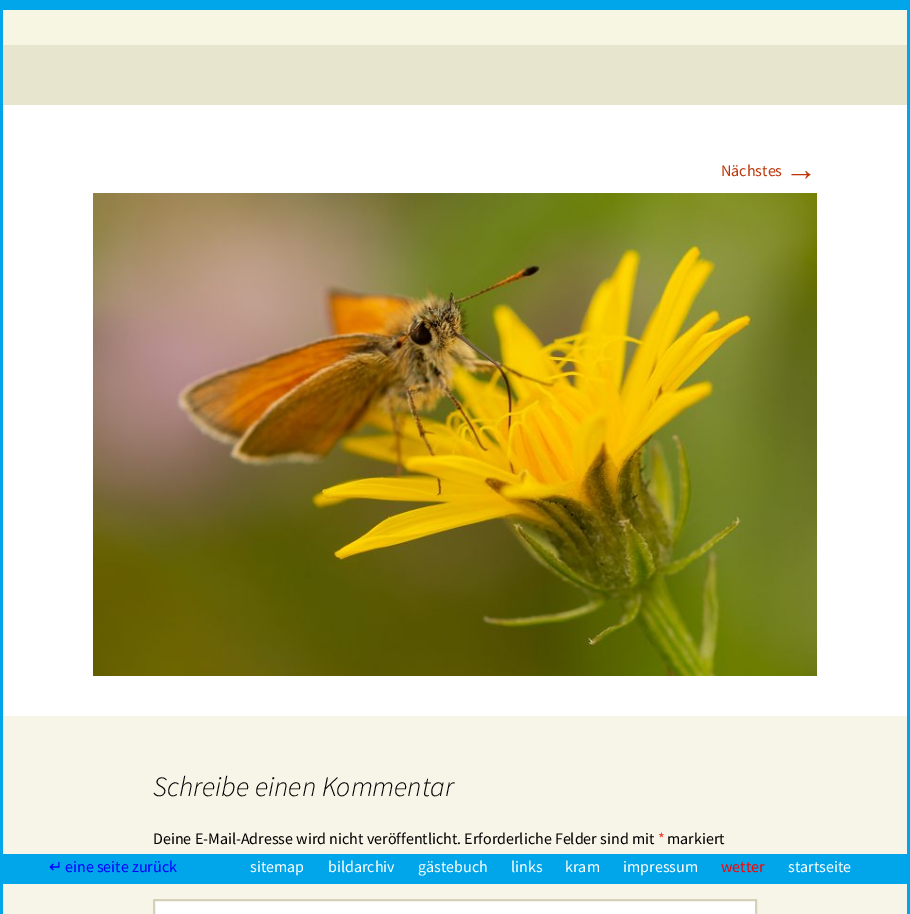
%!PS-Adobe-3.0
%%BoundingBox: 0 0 910 914
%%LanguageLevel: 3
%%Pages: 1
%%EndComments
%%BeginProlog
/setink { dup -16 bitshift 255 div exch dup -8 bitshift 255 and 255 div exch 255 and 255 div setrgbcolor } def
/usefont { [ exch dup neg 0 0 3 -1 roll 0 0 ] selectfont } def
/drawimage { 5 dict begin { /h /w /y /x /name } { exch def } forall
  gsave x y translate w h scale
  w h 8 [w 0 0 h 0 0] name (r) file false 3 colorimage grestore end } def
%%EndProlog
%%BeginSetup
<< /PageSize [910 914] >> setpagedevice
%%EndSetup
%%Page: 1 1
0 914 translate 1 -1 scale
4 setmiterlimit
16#F7F6E3 setink
0 0 910 914 rectfill
[
    [907 0 3 914 16#01A6EA]
    [0 0 3 914 16#01A6EA]
    [3 0 904 10 16#01A6EA]
    [3 45 904 60 16#E8E5CE]
    [3 105 904 611 16#FFFFFF]
] { aload pop setink rectfill } forall
/SourceSansPro-Regular 16 usefont
16#BC360A setink
721 176 moveto (Nächstes) show
/LiberationSans-Regular 32 usefont
785 180 moveto (→) show
(img1.raw) 93 193 724 483 drawimage
16#F7F5E7 setink
3 716 904 198 rectfill
/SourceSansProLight-LightItalic 28 usefont
16#000000 setink
153 796 moveto (Schreibe einen Kommentar) show
/SourceSansPro-Regular 16 usefont
153 844 moveto (Deine E-Mail-Adresse wird nicht veröffentlicht. Erforderliche Felder sind mit) show
16#ED331C setink
658 844 moveto (*) show
16#000000 setink
667 844 moveto (markiert) show
16#FFFFFF setink
154 900 moveto 756 900 lineto 756 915 lineto 154 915 lineto closepath gsave fill grestore
16#D4D0BA setink
2 setlinewidth
stroke
16#01A6EA setink
3 854 904 30 rectfill
/DejaVuSans-Regular 16 usefont
16#0000FF setink
49 872 moveto (↵) show
/SourceSansPro-Regular 16 usefont
65 872 moveto (eine seite zurück) show
16#FFFFFF setink
[
    [(sitemap) 250 872]
    [(bildarchiv) 328 872]
    [(gästebuch) 418 872]
    [(links) 511 872]
    [(kram) 565 872]
    [(impressum) 623 872]
] { aload pop moveto show } forall
16#FF0000 setink
721 872 moveto (wetter) show
16#FFFFFF setink
788 872 moveto (startseite) show
showpage
%%EOF
